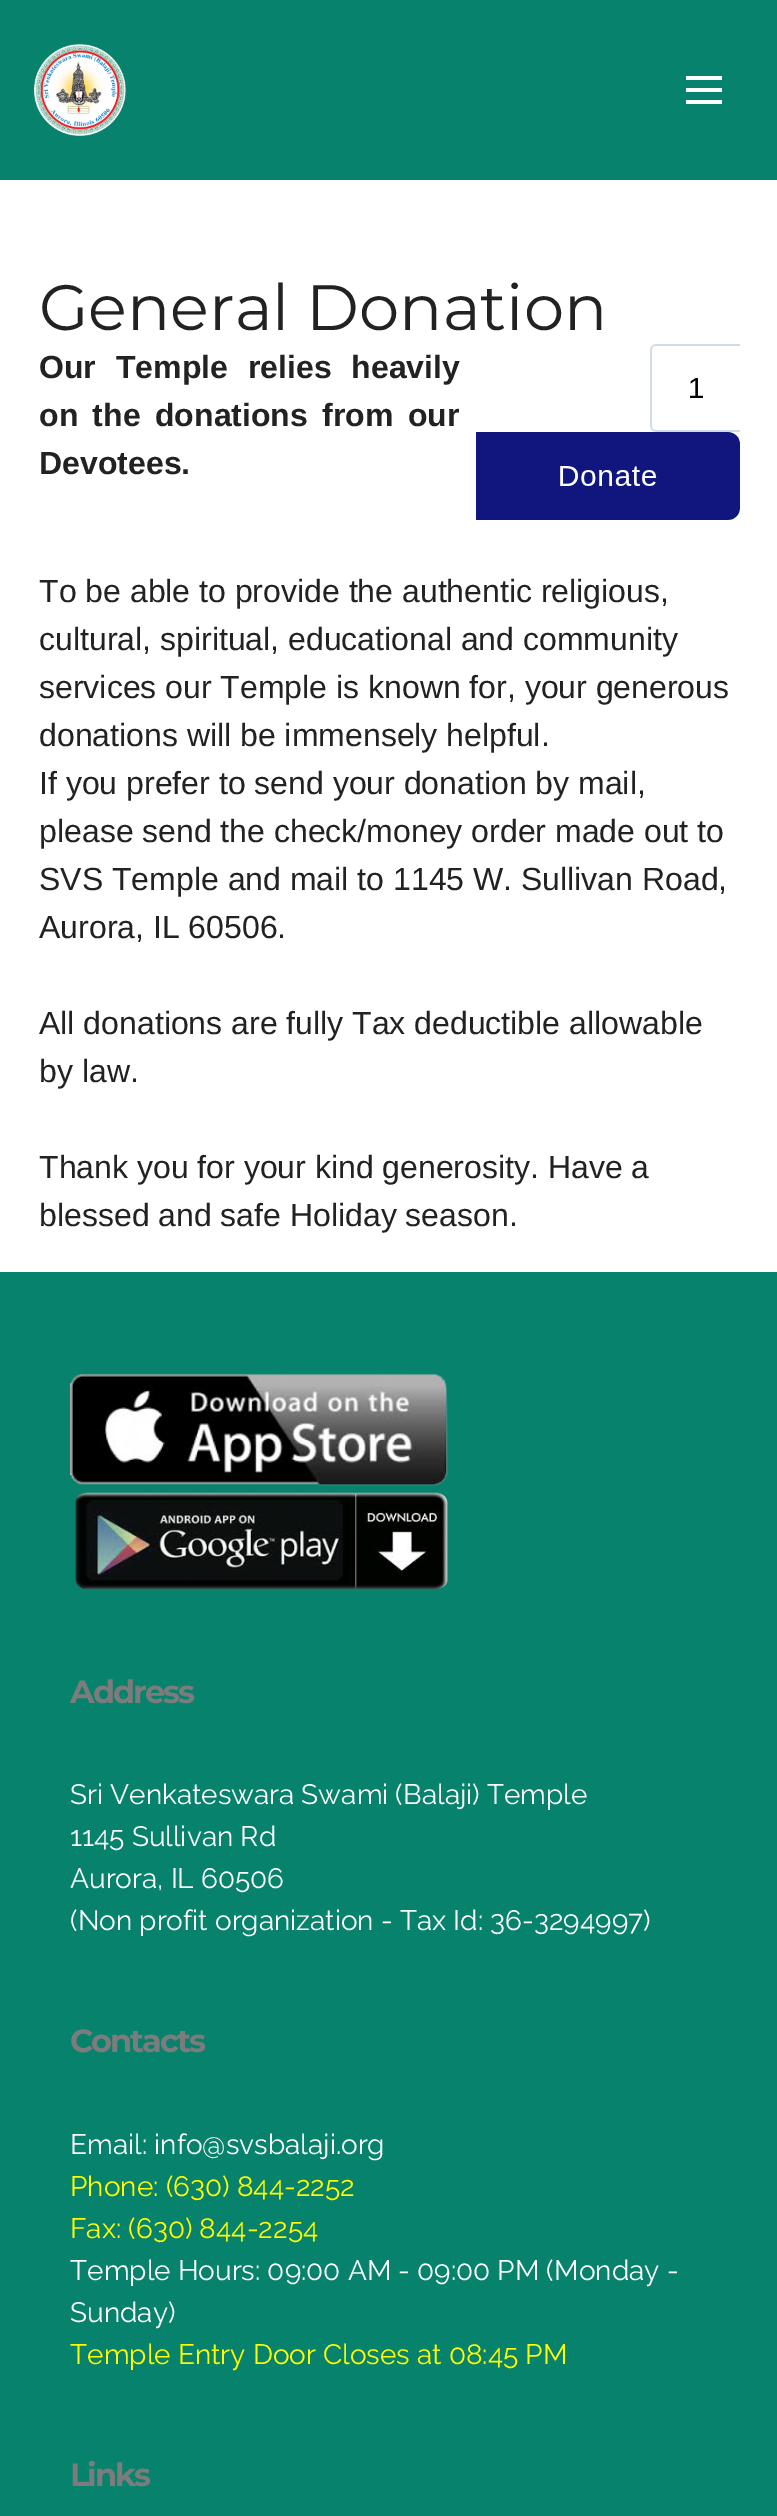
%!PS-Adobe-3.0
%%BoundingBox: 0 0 777 2516
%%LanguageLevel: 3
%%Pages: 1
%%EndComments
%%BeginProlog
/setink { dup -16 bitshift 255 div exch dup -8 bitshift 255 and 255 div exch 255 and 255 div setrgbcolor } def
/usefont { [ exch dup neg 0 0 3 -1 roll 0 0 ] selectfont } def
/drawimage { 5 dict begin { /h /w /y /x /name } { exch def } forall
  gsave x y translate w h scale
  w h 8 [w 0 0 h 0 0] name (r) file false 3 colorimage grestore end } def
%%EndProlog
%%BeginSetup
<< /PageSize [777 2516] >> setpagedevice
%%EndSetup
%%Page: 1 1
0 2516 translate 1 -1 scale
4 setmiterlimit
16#FFFFFF setink
0 0 777 2516 rectfill
16#07826D setink
0 0 777 180 rectfill
(img1.raw) 34 44 92 92 drawimage
[
    [686 100 36 4 16#FFFFFF]
    [686 88 36 4 16#FFFFFF]
    [686 76 36 4 16#FFFFFF]
] { aload pop setink rectfill } forall
/Montserrat-Regular 64 usefont
16#222222 setink
39 330 moveto (General Donation) show
/LiberationSans-Bold 32 usefont
39 378 moveto 11 0 32 (Our Temple relies heavily) widthshow
39 426 moveto 5.5 0 32 (on the donations from our) widthshow
39 474 moveto (Devotees.) show
(img2.raw) 476 344 264 176 drawimage
/LiberationSans-Regular 32 usefont
[
    [(To be able to provide the authentic religious,) 39 602]
    [(cultural, spiritual, educational and community) 39 650]
    [(services our Temple is known for, your generous) 39 698]
    [(donations will be immensely helpful.) 39 746]
    [(If you prefer to send your donation by mail,) 39 794]
    [(please send the check/money order made out to) 39 842]
    [(SVS Temple and mail to 1145 W. Sullivan Road,) 39 890]
    [(Aurora, IL 60506.) 39 938]
    [(All donations are fully Tax deductible allowable) 39 1034]
    [(by law.) 39 1082]
    [(Thank you for your kind generosity. Have a) 39 1178]
    [(blessed and safe Holiday season.) 39 1226]
] { aload pop moveto show } forall
16#07826D setink
0 1272 777 1244 rectfill
(img3.raw) 70 1373 378 113 drawimage
(img4.raw) 75 1492 373 98 drawimage
/Montserrat-Bold 32 usefont
16#7C7C7C setink
70 1703 moveto -2 0 (Address) ashow
/Raleway-Regular 28 usefont
16#FFFFFF setink
[
    [(Sri Venkateswara Swami \(Balaji\) Temple) 70 1804]
    [(1145 Sullivan Rd) 70 1846]
    [(Aurora, IL 60506) 70 1888]
    [(\(Non profit organization - Tax Id: 36-3294997\)) 70 1930]
] { aload pop moveto show } forall
/Montserrat-Bold 32 usefont
16#7C7C7C setink
70 2052 moveto -2 0 (Contacts) ashow
/Raleway-Regular 28 usefont
16#FFFFFF setink
70 2154 moveto (Email: info@svsbalaji.org) show
16#FFFF00 setink
70 2196 moveto (Phone: \(630\) 844-2252) show
70 2238 moveto (Fax: \(630\) 844-2254) show
16#FFFFFF setink
70 2280 moveto (Temple Hours: 09:00 AM - 09:00 PM \(Monday -) show
70 2322 moveto (Sunday\)) show
16#FFFF00 setink
70 2364 moveto (Temple Entry Door Closes at 08:45 PM) show
/Montserrat-Bold 32 usefont
16#7C7C7C setink
70 2486 moveto -2 0 (Links) ashow
showpage
%%EOF
